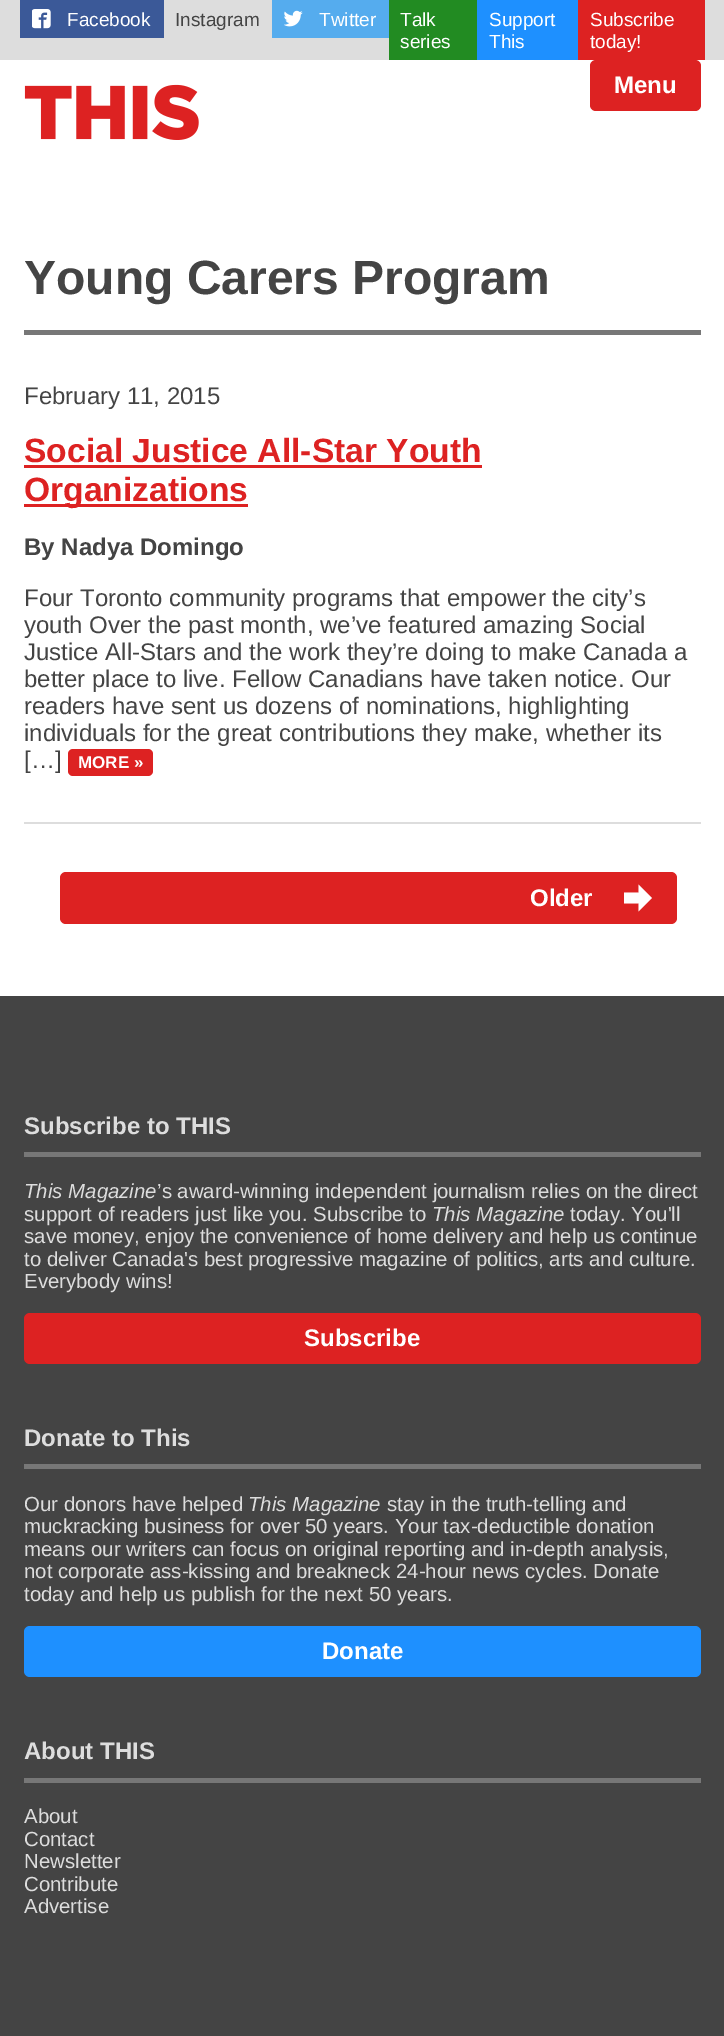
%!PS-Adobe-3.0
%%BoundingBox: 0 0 724 2036
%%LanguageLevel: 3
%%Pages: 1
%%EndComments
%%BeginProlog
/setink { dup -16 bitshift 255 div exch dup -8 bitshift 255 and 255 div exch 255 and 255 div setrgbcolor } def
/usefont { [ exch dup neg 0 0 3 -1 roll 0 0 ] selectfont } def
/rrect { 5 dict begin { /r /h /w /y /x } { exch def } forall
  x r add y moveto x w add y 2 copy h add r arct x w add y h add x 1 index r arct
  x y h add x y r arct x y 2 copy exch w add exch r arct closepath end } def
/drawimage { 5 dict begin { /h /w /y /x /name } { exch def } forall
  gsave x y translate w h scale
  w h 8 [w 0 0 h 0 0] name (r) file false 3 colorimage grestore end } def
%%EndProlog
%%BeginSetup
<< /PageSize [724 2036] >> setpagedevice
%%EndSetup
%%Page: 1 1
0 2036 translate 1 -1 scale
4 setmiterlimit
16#FFFFFF setink
0 0 724 2036 rectfill
16#DDDDDD setink
0 0 724 60 rectfill
16#3B5998 setink
20 0 144 38 rectfill
(img1.raw) 32 9 19 20 drawimage
/LiberationSans-Regular 19 usefont
16#FFFFFF setink
67 26 moveto (Facebook) show
16#444444 setink
175 26 moveto (Instagram) show
16#55ACEE setink
272 0 117 38 rectfill
(img2.raw) 284 10 19 17 drawimage
16#FFFFFF setink
319 26 moveto (Twitter) show
16#228B22 setink
389 0 88 60 rectfill
16#FFFFFF setink
400 26 moveto (Talk) show
400 48 moveto (series) show
16#1E90FF setink
477 0 101 60 rectfill
16#FFFFFF setink
489 26 moveto (Support) show
489 48 moveto (This) show
16#DD2222 setink
578 0 127 60 rectfill
16#FFFFFF setink
590 26 moveto (Subscribe) show
590 48 moveto (today!) show
(img3.raw) 24 84 175 56 drawimage
16#DD2222 setink
590 60 111 51 6 rrect fill
/LiberationSans-Bold 24 usefont
16#FFFFFF setink
614 93 moveto (Menu) show
16#777777 setink
24 330 677 5 rectfill
/LiberationSans-Bold 48 usefont
16#444444 setink
24 294 moveto (Young Carers Program) show
16#DDDDDD setink
24 822 677 2 rectfill
/LiberationSans-Regular 24 usefont
16#444444 setink
24 404 moveto (February 11, 2015) show
/LiberationSans-Bold 33.6 usefont
16#DD2222 setink
24 462 moveto (Social Justice All-Star Youth) show
24 465 458 3 rectfill
24 504 224 3 rectfill
24 501 moveto (Organizations) show
/LiberationSans-Bold 24 usefont
16#444444 setink
24 555 moveto (By Nadya Domingo) show
/LiberationSans-Regular 24 usefont
[
    [(Four Toronto community programs that empower the city’s) 24 606]
    [(youth Over the past month, we’ve featured amazing Social) 24 633]
    [(Justice All-Stars and the work they’re doing to make Canada a) 24 660]
    [(better place to live. Fellow Canadians have taken notice. Our) 24 687]
    [(readers have sent us dozens of nominations, highlighting) 24 714]
    [(individuals for the great contributions they make, whether its) 24 741]
    [([…]) 24 768]
] { aload pop moveto show } forall
16#DD2222 setink
68 749 85 27 5 rrect fill
/LiberationSans-Bold 17 usefont
16#FFFFFF setink
78 768 moveto (MORE ») show
16#DD2222 setink
60 872 617 52 6 rrect fill
/LiberationSans-Bold 24 usefont
16#FFFFFF setink
530 906 moveto (Older) show
652 898 moveto 638.5 884.5 lineto 638.5 892.5 lineto 624 892.5 lineto 624 903.5 lineto 638.5 903.5 lineto 638.5 911.5 lineto closepath fill
16#444444 setink
0 996 724 1040 rectfill
16#777777 setink
24 1152 677 5 rectfill
16#DDDDDD setink
24 1134 moveto (Subscribe to THIS) show
/LiberationSans-Italic 20.4 usefont
24 1198 moveto (This Magazine) show
/LiberationSans-Regular 20.4 usefont
157 1198 moveto (’s award-winning independent journalism relies on the direct) show
24 1221 moveto (support of readers just like you. Subscribe to) show
/LiberationSans-Italic 20.4 usefont
432 1221 moveto (This Magazine) show
/LiberationSans-Regular 20.4 usefont
[
    [(today. You'll) 570 1221]
    [(save money, enjoy the convenience of home delivery and help us continue) 24 1243]
    [(to deliver Canada's best progressive magazine of politics, arts and culture.) 24 1266]
    [(Everybody wins!) 24 1288]
] { aload pop moveto show } forall
16#DD2222 setink
24 1313 677 51 6 rrect fill
/LiberationSans-Bold 24 usefont
16#FFFFFF setink
304 1346 moveto (Subscribe) show
16#777777 setink
24 1464 677 5 rectfill
16#DDDDDD setink
24 1446 moveto (Donate to This) show
/LiberationSans-Regular 20.4 usefont
24 1511 moveto (Our donors have helped) show
/LiberationSans-Italic 20.4 usefont
248 1511 moveto (This Magazine) show
/LiberationSans-Regular 20.4 usefont
[
    [(stay in the truth-telling and) 387 1511]
    [(muckracking business for over 50 years. Your tax-deductible donation) 24 1533]
    [(means our writers can focus on original reporting and in-depth analysis,) 24 1556]
    [(not corporate ass-kissing and breakneck 24-hour news cycles. Donate) 24 1578]
    [(today and help us publish for the next 50 years.) 24 1601]
] { aload pop moveto show } forall
16#1E90FF setink
24 1626 677 51 6 rrect fill
/LiberationSans-Bold 24 usefont
16#FFFFFF setink
322 1659 moveto (Donate) show
16#777777 setink
24 1778 677 5 rectfill
16#DDDDDD setink
24 1759 moveto (About THIS) show
/LiberationSans-Regular 20.4 usefont
[
    [(About) 24 1823]
    [(Contact) 24 1846]
    [(Newsletter) 24 1868]
    [(Contribute) 24 1891]
    [(Advertise) 24 1913]
] { aload pop moveto show } forall
showpage
%%EOF
